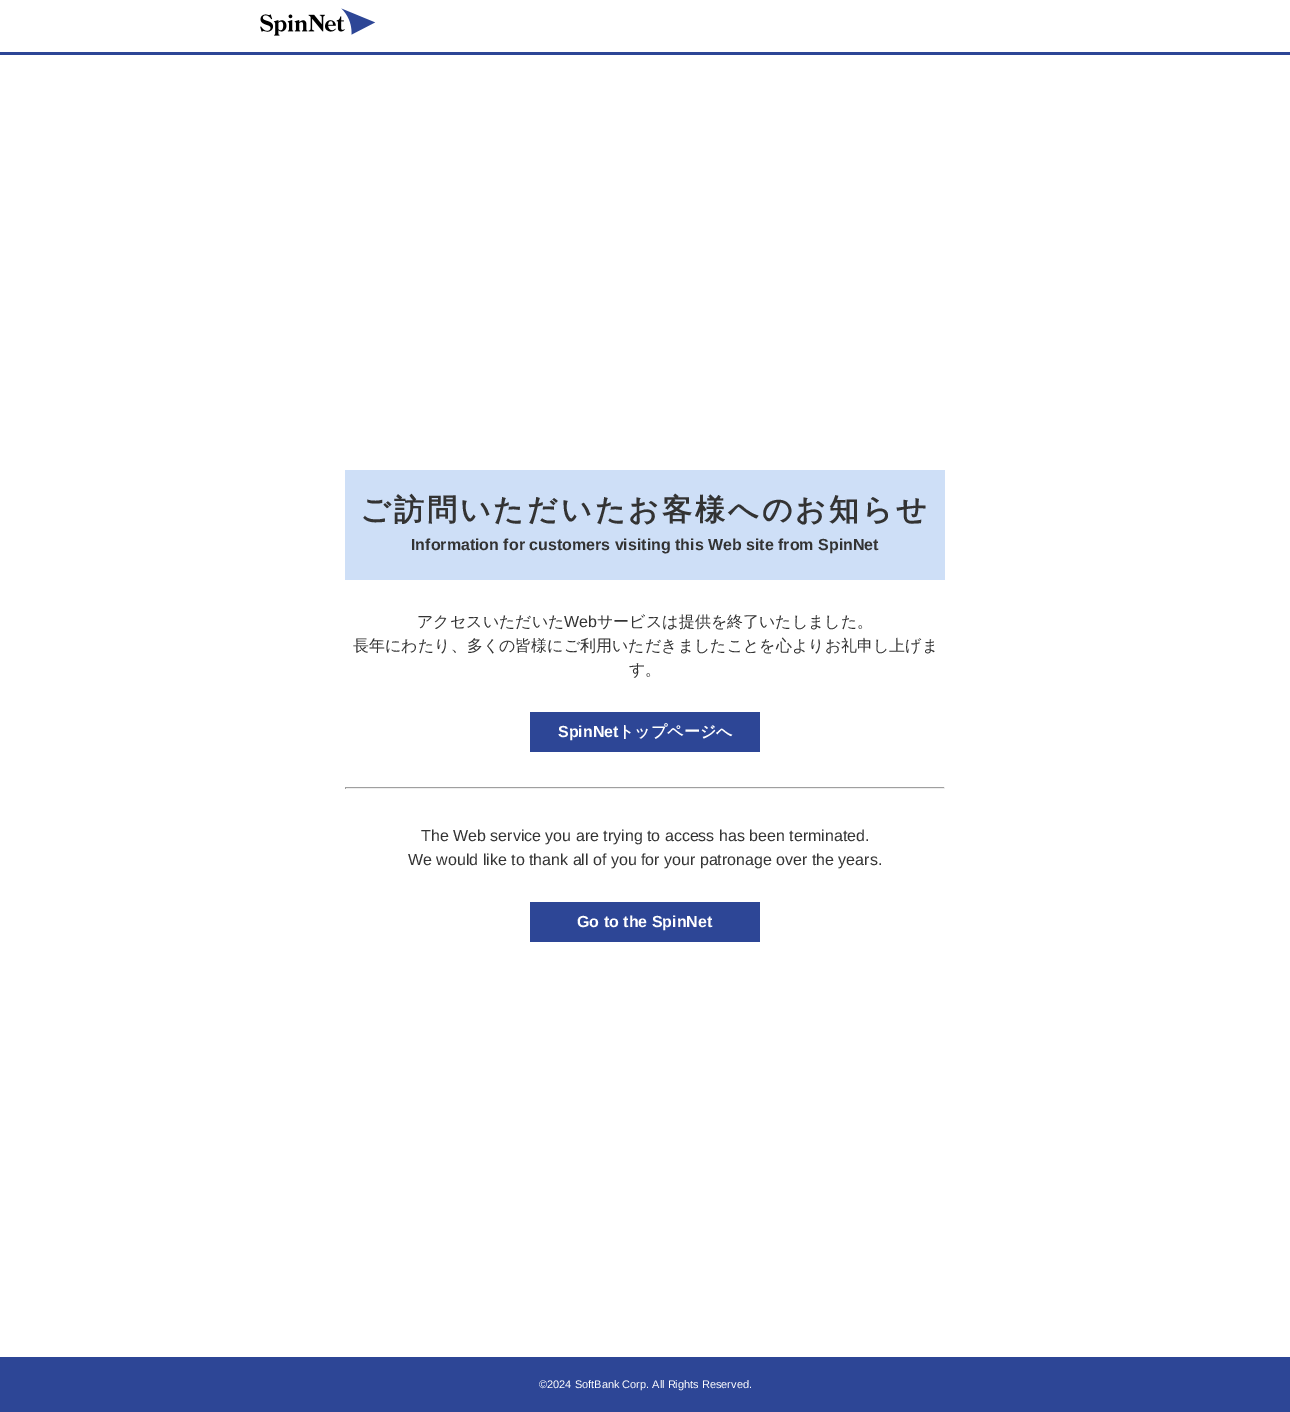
%!PS-Adobe-3.0
%%BoundingBox: 0 0 1290 1412
%%LanguageLevel: 3
%%Pages: 1
%%EndComments
%%BeginProlog
/setink { dup -16 bitshift 255 div exch dup -8 bitshift 255 and 255 div exch 255 and 255 div setrgbcolor } def
/usefont { [ exch dup neg 0 0 3 -1 roll 0 0 ] selectfont } def
/drawimage { 5 dict begin { /h /w /y /x /name } { exch def } forall
  gsave x y translate w h scale
  w h 8 [w 0 0 h 0 0] name (r) file false 3 colorimage grestore end } def
%%EndProlog
%%BeginSetup
<< /PageSize [1290 1412] >> setpagedevice
%%EndSetup
%%Page: 1 1
0 1412 translate 1 -1 scale
4 setmiterlimit
16#FFFFFF setink
0 0 1290 1412 rectfill
16#2D4696 setink
0 52 1290 3 rectfill
(img1.raw) 260 8 116 28 drawimage
16#CEDFF7 setink
345 470 600 110 rectfill
/WenQuanYiZenHei-Bold 30 usefont
16#333333 setink
360 520 moveto 3 0 (ご訪問いただいたお客様へのお知らせ) ashow
/LiberationSans-Bold 16 usefont
411 550 moveto (Information for customers visiting this Web site from SpinNet) show
/WenQuanYiZenHei-Medium 16 usefont
417 627 moveto (アクセスいただいた) show
/LiberationSans-Regular 16 usefont
564 627 moveto (Web) show
/WenQuanYiZenHei-Medium 16 usefont
[
    [(サービスは提供を終了いたしました。) 597 627]
    [(長年にわたり、多くの皆様にご利用いただきましたことを心よりお礼申し上げま) 353 651]
    [(す。) 629 675]
] { aload pop moveto show } forall
16#2D4696 setink
530 712 230 40 rectfill
/LiberationSans-Bold 16 usefont
16#FFFFFF setink
558 737 moveto (SpinNet) show
/WenQuanYiZenHei-Bold 16 usefont
618 737 moveto (トップページへ) show
[
    [345 787 600 1 16#9F9F9F]
    [944 787 1 2 16#EEEEEE]
    [345 788 600 1 16#EEEEEE]
    [345 787 1 2 16#9F9F9F]
] { aload pop setink rectfill } forall
/LiberationSans-Regular 16 usefont
16#333333 setink
421 841 moveto (The Web service you are trying to access has been terminated.) show
408 865 moveto (We would like to thank all of you for your patronage over the years.) show
16#2D4696 setink
530 902 230 40 rectfill
/LiberationSans-Bold 16 usefont
16#FFFFFF setink
577 927 moveto (Go to the SpinNet) show
16#2D4696 setink
0 1357 1290 55 rectfill
/LiberationSans-Regular 11 usefont
16#FFFFFF setink
539 1388 moveto (©2024 SoftBank Corp. All Rights Reserved.) show
showpage
%%EOF
